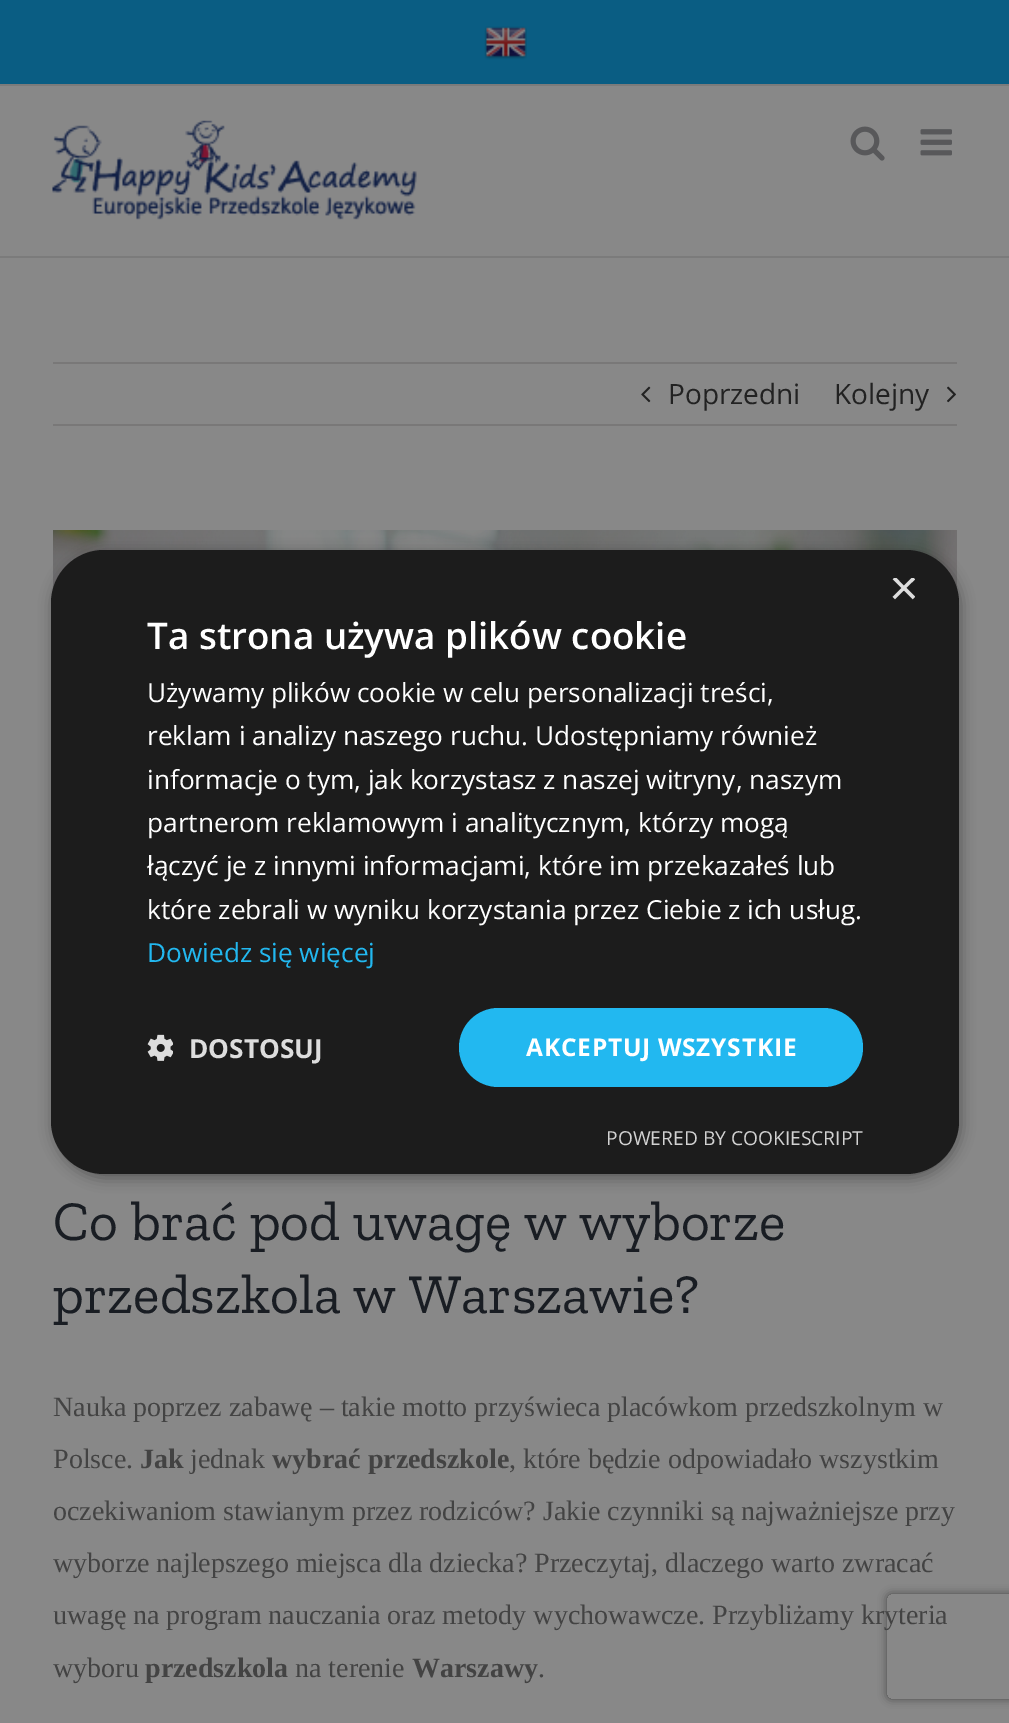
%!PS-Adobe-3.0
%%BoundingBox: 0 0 1009 1723
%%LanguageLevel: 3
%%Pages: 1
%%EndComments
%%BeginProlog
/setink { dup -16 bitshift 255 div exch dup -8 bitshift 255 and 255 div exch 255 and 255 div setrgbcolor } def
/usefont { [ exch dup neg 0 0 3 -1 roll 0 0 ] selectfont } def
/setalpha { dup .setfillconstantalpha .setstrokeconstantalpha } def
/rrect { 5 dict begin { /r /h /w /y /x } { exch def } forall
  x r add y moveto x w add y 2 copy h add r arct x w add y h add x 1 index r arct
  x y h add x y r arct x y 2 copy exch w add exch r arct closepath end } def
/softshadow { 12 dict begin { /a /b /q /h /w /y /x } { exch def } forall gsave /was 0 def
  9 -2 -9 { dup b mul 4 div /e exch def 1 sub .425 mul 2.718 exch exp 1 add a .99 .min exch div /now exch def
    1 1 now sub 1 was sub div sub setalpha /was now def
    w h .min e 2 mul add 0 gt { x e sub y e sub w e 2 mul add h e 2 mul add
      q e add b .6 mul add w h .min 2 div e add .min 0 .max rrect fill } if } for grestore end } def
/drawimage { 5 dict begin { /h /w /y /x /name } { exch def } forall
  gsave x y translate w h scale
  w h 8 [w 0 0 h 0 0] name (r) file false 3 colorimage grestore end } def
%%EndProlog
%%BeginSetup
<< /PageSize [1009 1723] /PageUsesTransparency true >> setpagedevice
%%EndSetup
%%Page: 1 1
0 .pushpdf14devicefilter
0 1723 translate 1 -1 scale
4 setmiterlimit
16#888888 setink
0 0 1009 1723 rectfill
16#0A5D83 setink
0 0 1009 84 rectfill
16#7B7B7B setink
0 84 1009 2 rectfill
(img1.raw) 484 26 43 34 drawimage
0 256 1009 2 rectfill
(img2.raw) 52 120 365 100 drawimage
(img3.raw) 850 126 35 35 drawimage
(img4.raw) 920 129 32 27 drawimage
16#797878 setink
53 362 904 2 rectfill
53 424 904 2 rectfill
(img5.raw) 641 386 10 17 drawimage
/OpenSans-Regular 28 usefont
16#222222 setink
668 404 moveto (Poprzedni) show
834 404 moveto (Kolejny) show
(img6.raw) 947 386 9 17 drawimage
(img7.raw) 53 530 904 59 drawimage
/ZillaSlab-Regular 56 usefont
16#191D23 setink
53 1240 moveto (Co brać pod uwagę w wyborze) show
53 1313 moveto (przedszkola w Warszawie?) show
/LiberationSerif-Regular 28 usefont
16#434343 setink
53 1416 moveto (Nauka poprzez zabawę – takie motto przyświeca placówkom przedszkolnym w) show
53 1468 moveto (Polsce.) show
/LiberationSerif-Bold 28 usefont
140 1468 moveto (Jak) show
/LiberationSerif-Regular 28 usefont
190 1468 moveto (jednak) show
/LiberationSerif-Bold 28 usefont
272 1468 moveto (wybrać przedszkole) show
/LiberationSerif-Regular 28 usefont
[
    [(, które będzie odpowiadało wszystkim) 509 1468]
    [(oczekiwaniom stawianym przez rodziców? Jakie czynniki są najważniejsze przy) 53 1520]
    [(wyborze najlepszego miejsca dla dziecka? Przeczytaj, dlaczego warto zwracać) 53 1572]
    [(uwagę na program nauczania oraz metody wychowawcze. Przybliżamy kryteria) 53 1624]
    [(wyboru) 53 1677]
] { aload pop moveto show } forall
/LiberationSerif-Bold 28 usefont
145 1677 moveto (przedszkola) show
/LiberationSerif-Regular 28 usefont
295 1677 moveto (na terenie) show
/LiberationSerif-Bold 28 usefont
412 1677 moveto (Warszawy) show
/LiberationSerif-Regular 28 usefont
538 1677 moveto (.) show
16#000000 setink
53 553 908 625 53 7 0.35 softshadow
16#1C1C1C setink
51 550 908 624 53 rrect fill
gsave
889 578 26 26 rectclip
/LiberationSans-Regular 51 usefont
16#DDDDDD setink
889 605 moveto (×) show
grestore
/OpenSans-SemiBold 36.75 usefont
16#FFFFFF setink
147 649 moveto (Ta strona używa plików cookie) show
/OpenSans-Regular 26.25 usefont
[
    [(Używamy plików cookie w celu personalizacji treści,) 147 702]
    [(reklam i analizy naszego ruchu. Udostępniamy również) 147 745]
    [(informacje o tym, jak korzystasz z naszej witryny, naszym) 147 789]
    [(partnerom reklamowym i analitycznym, którzy mogą) 147 832]
    [(łączyć je z innymi informacjami, które im przekazałeś lub) 147 875]
    [(które zebrali w wyniku korzystania przez Ciebie z ich usług.) 147 919]
] { aload pop moveto show } forall
16#22B8F0 setink
147 962 moveto (Dowiedz się więcej) show
(img8.raw) 147 1034 26 27 drawimage
/OpenSans-Bold 26.25 usefont
16#DDDDDD setink
189 1058 moveto (DOSTOSUJ) show
16#22B8F0 setink
459 1008 404 79 39.5 rrect fill
/OpenSans-Bold 24.5 usefont
16#FFFFFF setink
526 1056 moveto 0.75 0 (AKCEPTUJ WSZYSTKIE) ashow
/OpenSans-Regular 19.25 usefont
16#D2D2D2 setink
606 1145 moveto (POWERED BY COOKIESCRIPT) show
gsave
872 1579 moveto 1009 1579 lineto 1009 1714 lineto 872 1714 lineto closepath 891 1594 moveto 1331 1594 lineto 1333 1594 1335 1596 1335 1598 curveto 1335 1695 lineto 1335 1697 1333 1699 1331 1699 curveto 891 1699 lineto 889 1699 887 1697 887 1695 curveto 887 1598 lineto 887 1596 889 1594 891 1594 curveto closepath eoclip newpath
16#494949 setink
887 1594 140 105 4 4.5 1 softshadow
grestore
.poppdf14devicefilter showpage
%%EOF
